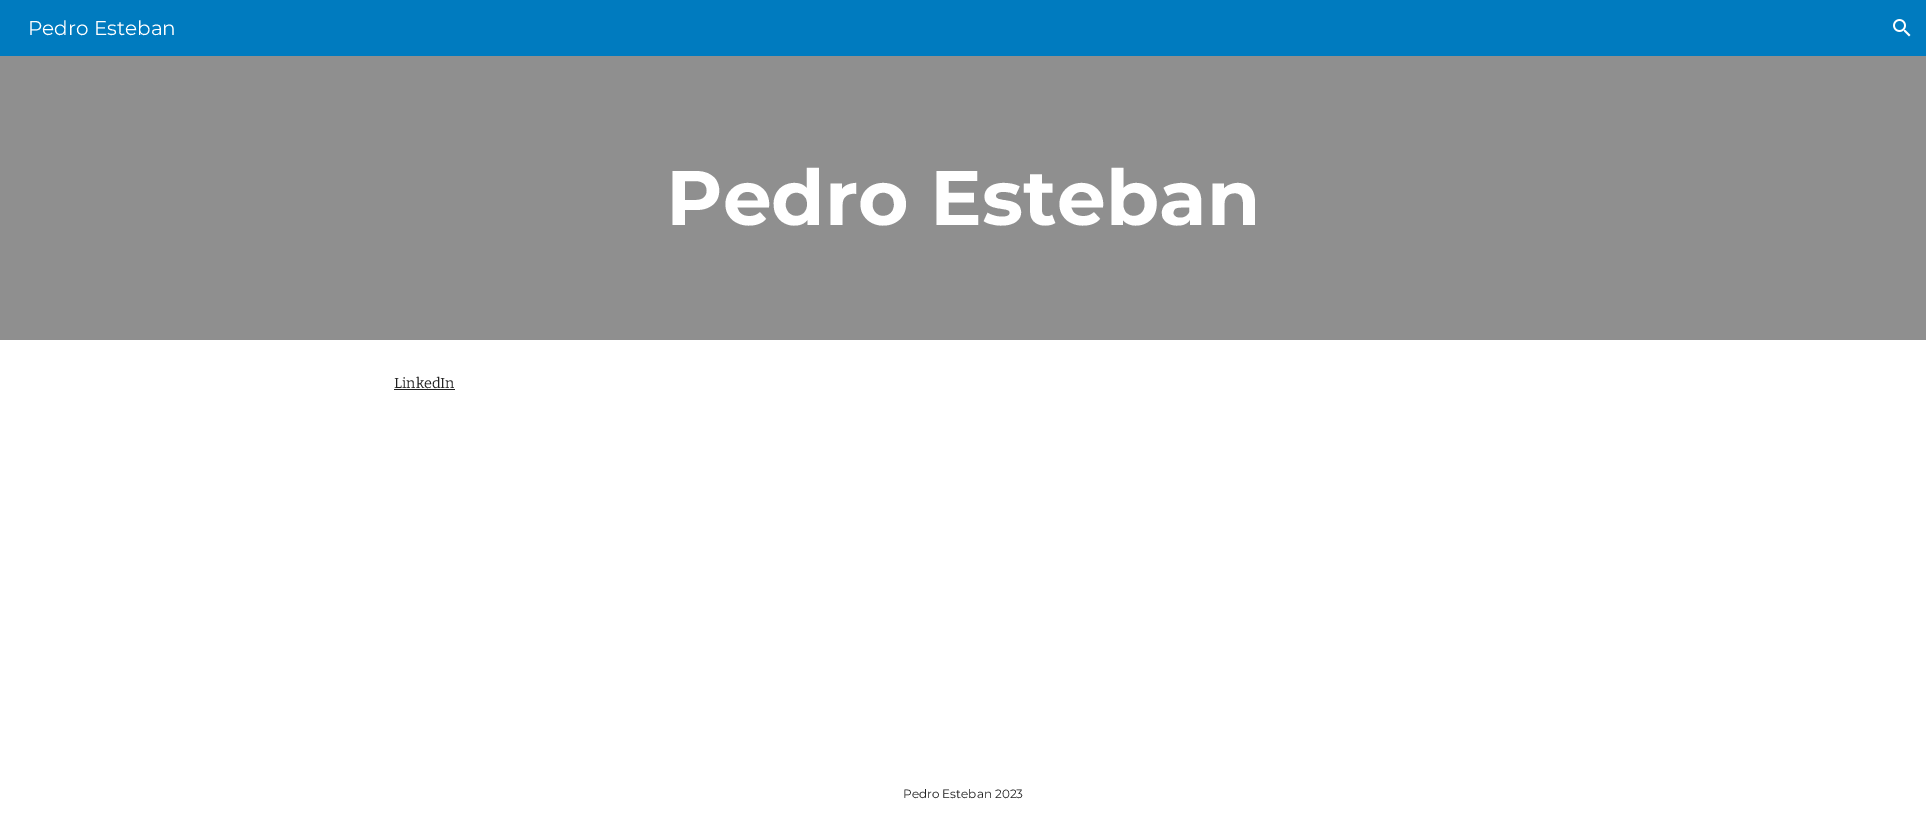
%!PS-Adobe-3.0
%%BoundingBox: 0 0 1926 833
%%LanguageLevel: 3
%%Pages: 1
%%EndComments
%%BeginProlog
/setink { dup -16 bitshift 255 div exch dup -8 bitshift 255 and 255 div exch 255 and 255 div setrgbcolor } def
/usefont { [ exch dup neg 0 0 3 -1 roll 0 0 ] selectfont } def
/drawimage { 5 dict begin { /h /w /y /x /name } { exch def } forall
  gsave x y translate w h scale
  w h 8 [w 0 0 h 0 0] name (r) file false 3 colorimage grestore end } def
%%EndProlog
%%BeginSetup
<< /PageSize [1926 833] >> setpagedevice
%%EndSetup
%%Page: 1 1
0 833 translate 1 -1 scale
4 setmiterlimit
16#FFFFFF setink
0 0 1926 833 rectfill
16#007BBF setink
0 0 1926 56 rectfill
/Montserrat-Regular 20 usefont
16#FFFFFF setink
28 35 moveto (Pedro Esteban) show
(img1.raw) 1893 19 18 18 drawimage
16#8F8F8F setink
0 56 1926 284 rectfill
/Montserrat-Bold 77.25 usefont
16#FFFFFF setink
666 225 moveto (Pedro Esteban) show
/Bitter-Regular 14.5 usefont
16#212121 setink
394 388 moveto (LinkedIn) show
394 389 61 1 rectfill
/Montserrat-Regular 12 usefont
903 798 moveto (Pedro Esteban 2023) show
showpage
%%EOF
